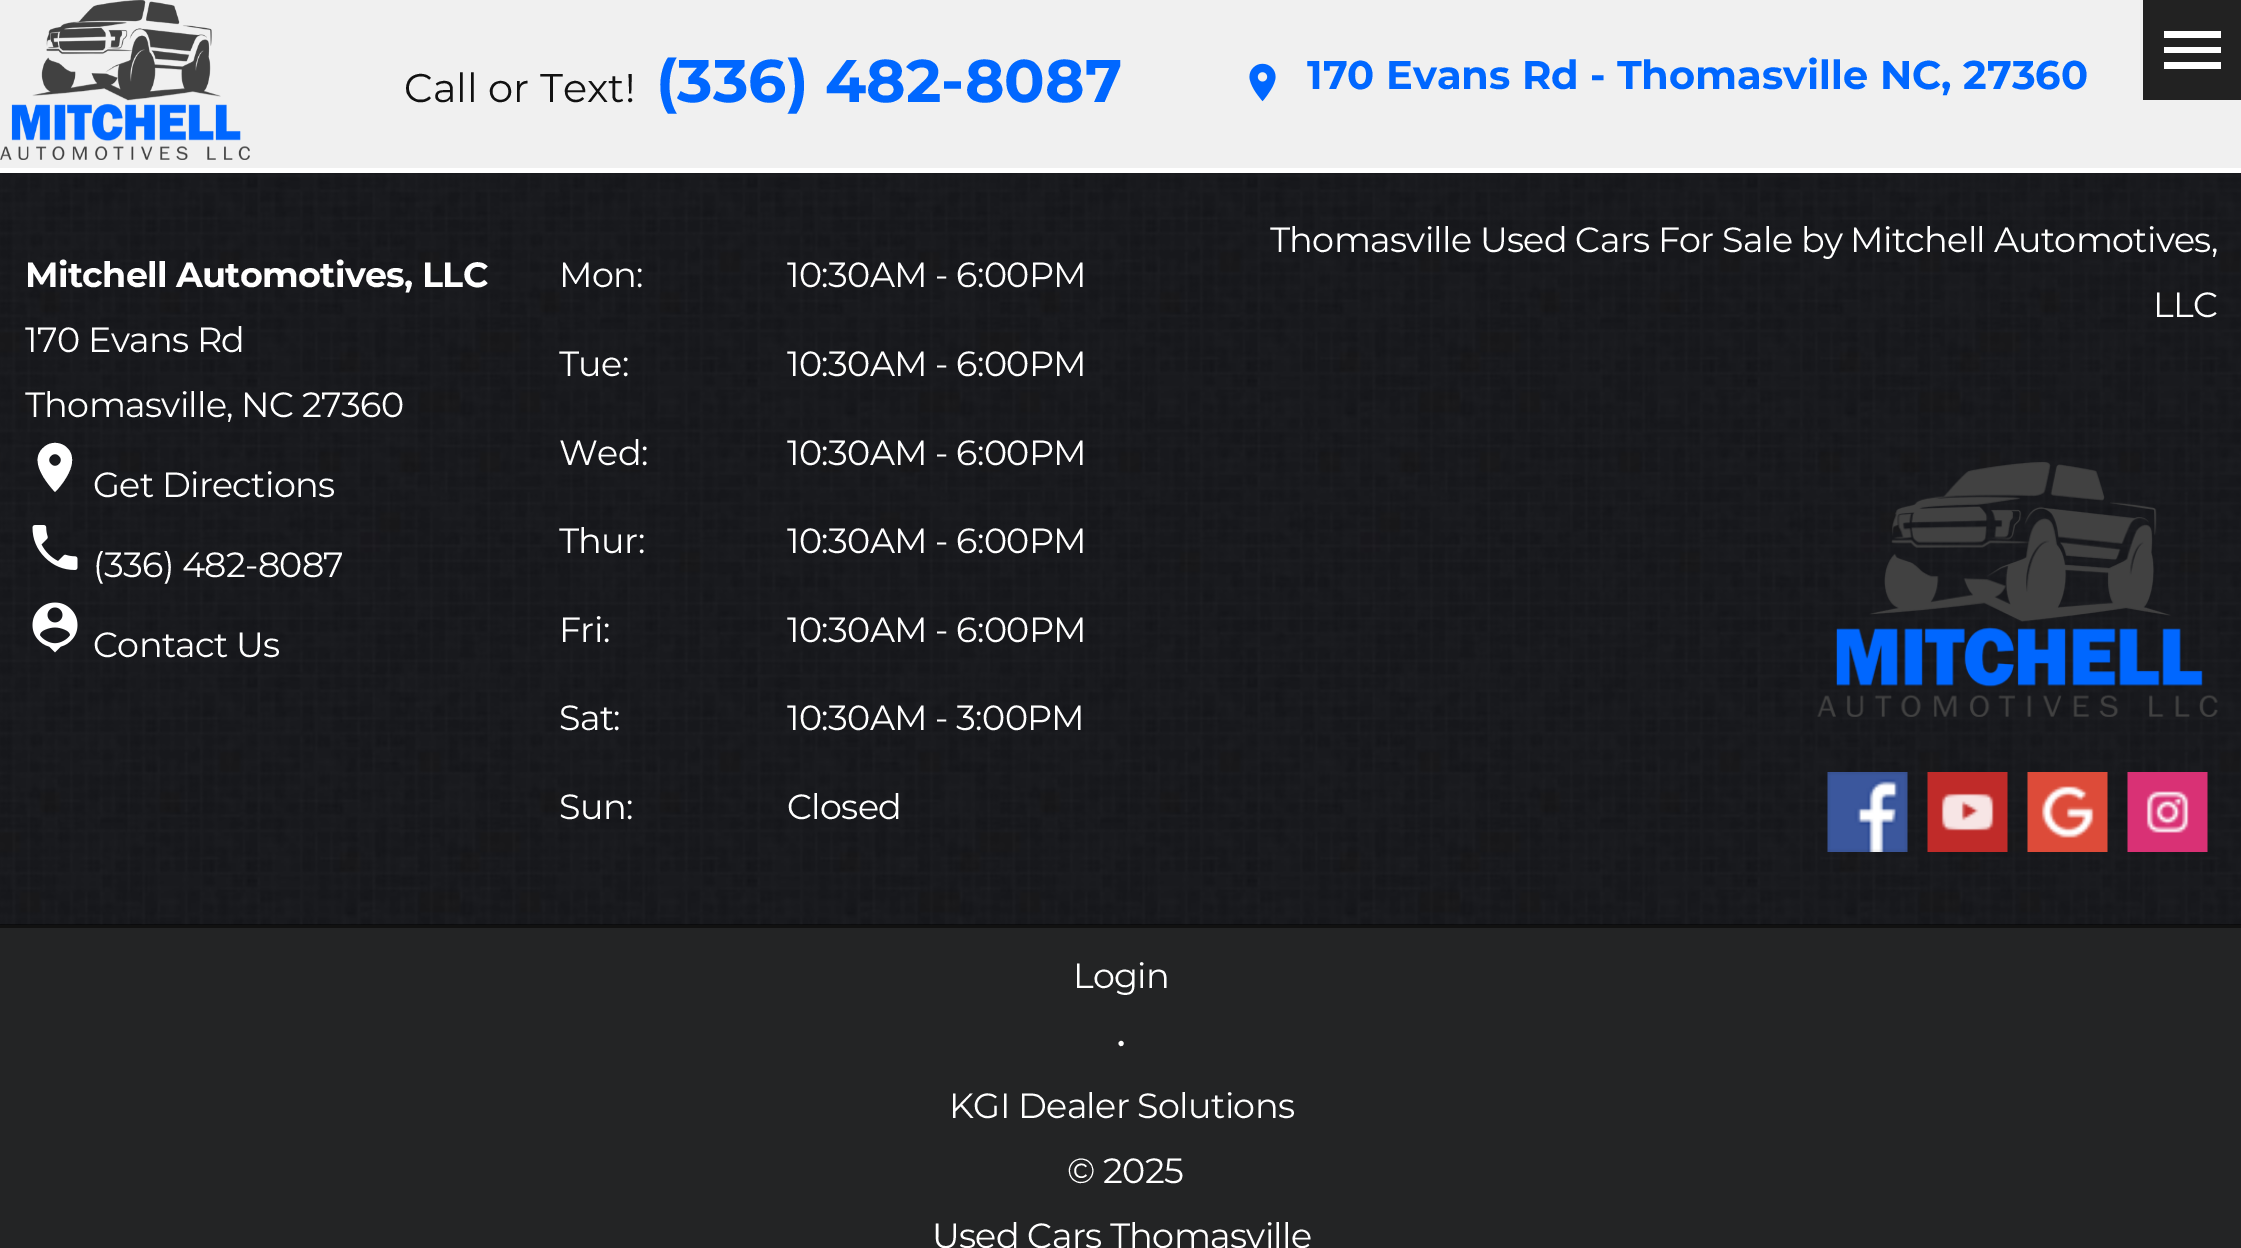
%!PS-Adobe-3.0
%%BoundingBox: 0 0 2241 1248
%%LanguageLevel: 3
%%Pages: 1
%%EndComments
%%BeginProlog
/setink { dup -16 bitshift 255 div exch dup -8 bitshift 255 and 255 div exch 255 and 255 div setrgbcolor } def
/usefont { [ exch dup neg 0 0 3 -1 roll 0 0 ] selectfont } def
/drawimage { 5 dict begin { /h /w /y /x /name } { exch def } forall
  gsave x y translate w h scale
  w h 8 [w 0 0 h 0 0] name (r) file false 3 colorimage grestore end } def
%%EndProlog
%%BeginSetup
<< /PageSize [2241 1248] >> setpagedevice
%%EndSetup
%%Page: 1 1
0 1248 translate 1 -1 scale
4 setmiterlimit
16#000000 setink
0 0 2241 1248 rectfill
16#F0F0F0 setink
0 0 2241 168 rectfill
16#FFFFFF setink
0 168 2241 5 rectfill
(img1.raw) 0 0 250 160 drawimage
/Montserrat-Regular 40 usefont
16#111111 setink
404 102 moveto (Call or Text!) show
/Montserrat-Bold 60 usefont
16#0067FF setink
656 102 moveto (\(336\) 482-8087) show
(img2.raw) 1249 63 27 39 drawimage
/Montserrat-Bold 40 usefont
1307 89 moveto (170 Evans Rd - Thomasville NC, 27360) show
16#222222 setink
2143 0 98 100 rectfill
16#FFFFFF setink
2164 31 moveto 2221 31 lineto 2221 38 lineto 2164 38 lineto closepath 2164 53 moveto 2164 47 lineto 2221 47 lineto 2221 53 lineto closepath 2164 69 moveto 2164 62 lineto 2221 62 lineto 2221 69 lineto closepath fill
(img3.raw) 0 173 2241 752 drawimage
/Montserrat-Bold 35 usefont
25 287 moveto -0.7 0 (Mitchell Automotives, LLC) ashow
/Montserrat-Regular 35 usefont
25 352 moveto -0.7 0 (170 Evans Rd) ashow
25 417 moveto -0.7 0 (Thomasville, NC 27360) ashow
51 464 moveto 56 470 65 461 59 456 curveto 54 450 45 459 51 464 curveto closepath 43 448 moveto 54 437 73 445 72 461 curveto 72 471 62 485 55 492 curveto 46 482 29 461 43 448 curveto closepath fill
93 497 moveto -0.7 0 (Get Directions) ashow
(img4.raw) 32 525 46 45 drawimage
93 577 moveto -0.7 0 (\(336\) 482-8087) ashow
(img5.raw) 32 602 46 51 drawimage
93 657 moveto -0.7 0 (Contact Us) ashow
559 287 moveto -0.7 0 (Mon:) ashow
787 287 moveto -0.7 0 (10:30AM - 6:00PM) ashow
559 376 moveto -0.7 0 (Tue:) ashow
787 376 moveto -0.7 0 (10:30AM - 6:00PM) ashow
559 465 moveto -0.7 0 (Wed:) ashow
787 465 moveto -0.7 0 (10:30AM - 6:00PM) ashow
559 553 moveto -0.7 0 (Thur:) ashow
787 553 moveto -0.7 0 (10:30AM - 6:00PM) ashow
559 642 moveto -0.7 0 (Fri:) ashow
787 642 moveto -0.7 0 (10:30AM - 6:00PM) ashow
559 730 moveto -0.7 0 (Sat:) ashow
787 730 moveto -0.7 0 (10:30AM - 3:00PM) ashow
559 819 moveto -0.7 0 (Sun:) ashow
787 819 moveto -0.7 0 (Closed) ashow
1270 252 moveto -0.7 0 (Thomasville Used Cars For Sale by Mitchell Automotives,) ashow
2153 317 moveto -0.7 0 (LLC) ashow
(img6.raw) 1817 462 401 255 drawimage
(img7.raw) 1827 772 81 80 drawimage
(img8.raw) 1927 772 81 80 drawimage
(img9.raw) 2027 772 81 80 drawimage
(img10.raw) 2127 772 81 80 drawimage
16#232425 setink
0 928 2241 320 rectfill
16#111111 setink
0 925 2241 3 rectfill
16#FFFFFF setink
1073 988 moveto -0.7 0 (Login) ashow
1116 1053 moveto -0.7 0 (•) ashow
949 1118 moveto -0.7 0 (KGI Dealer Solutions) ashow
1067 1183 moveto -0.7 0 (© 2025) ashow
932 1248 moveto -0.7 0 (Used Cars Thomasville) ashow
showpage
%%EOF
